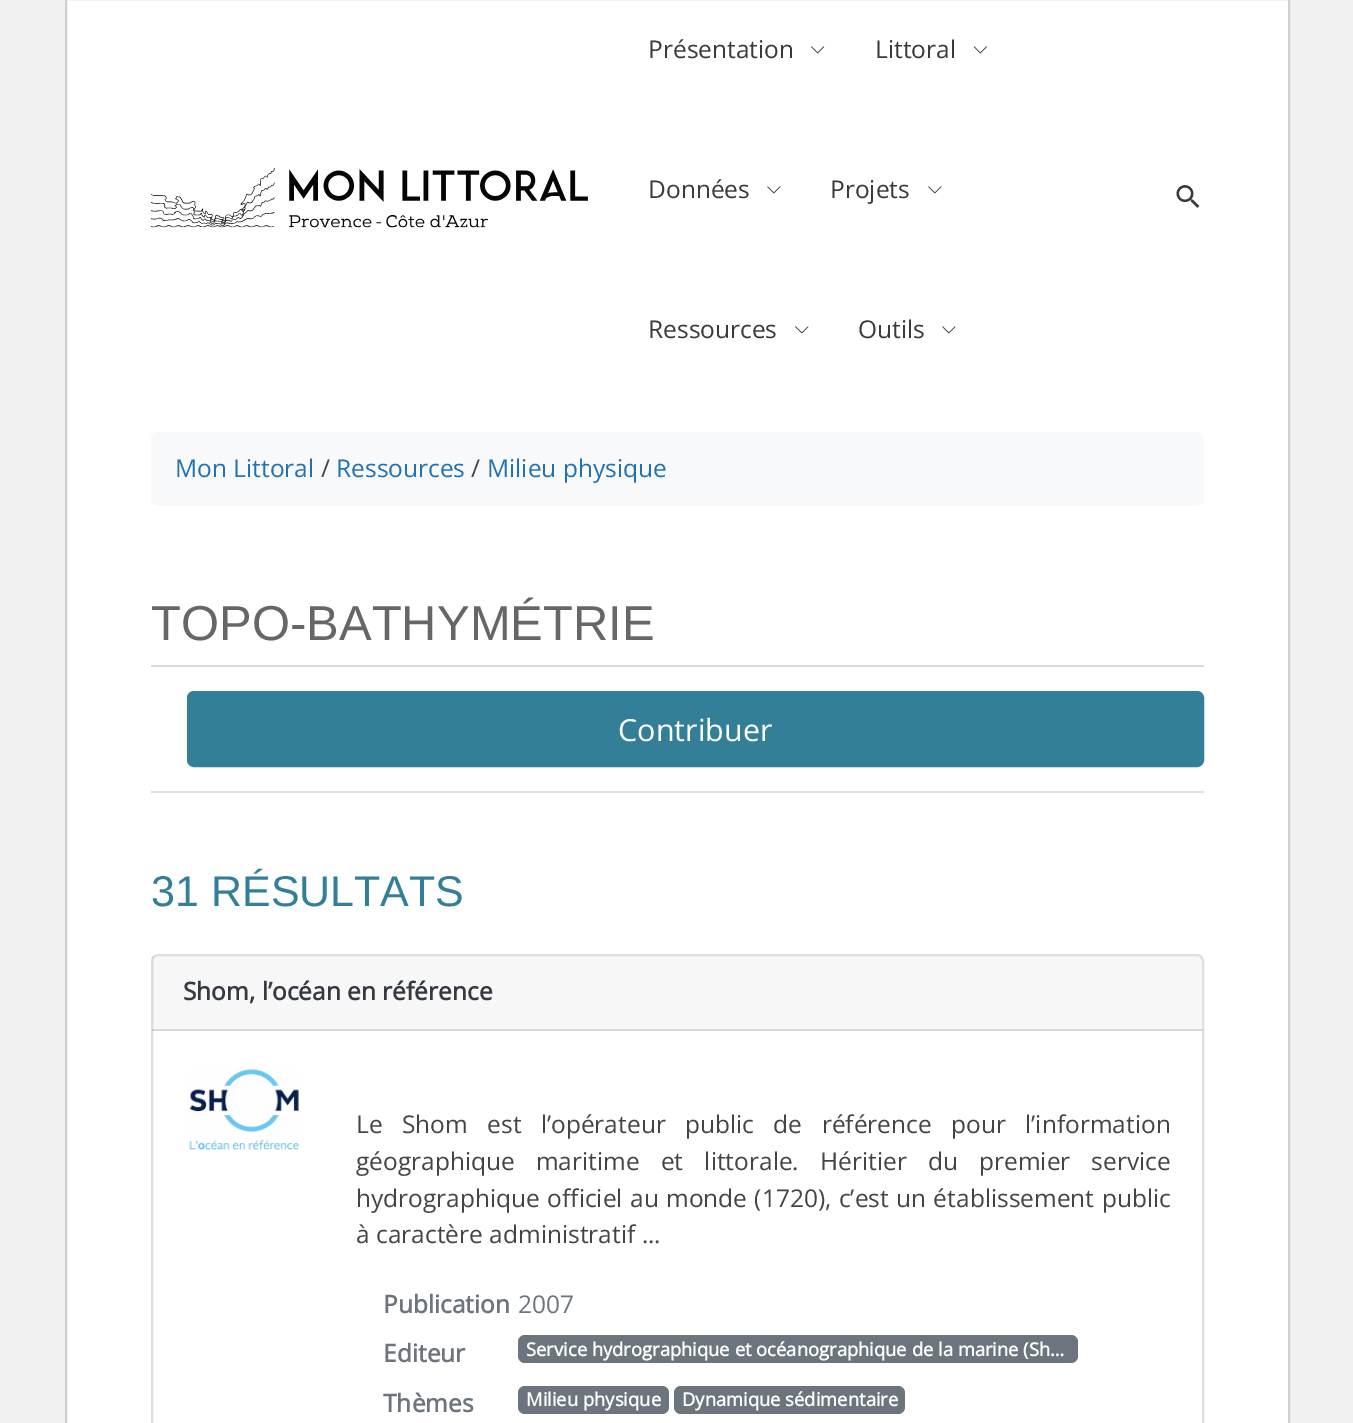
%!PS-Adobe-3.0
%%BoundingBox: 0 0 1353 1423
%%LanguageLevel: 3
%%Pages: 1
%%EndComments
%%BeginProlog
/setink { dup -16 bitshift 255 div exch dup -8 bitshift 255 and 255 div exch 255 and 255 div setrgbcolor } def
/usefont { [ exch dup neg 0 0 3 -1 roll 0 0 ] selectfont } def
/setalpha { dup .setfillconstantalpha .setstrokeconstantalpha } def
/rrect { 5 dict begin { /r /h /w /y /x } { exch def } forall
  x r add y moveto x w add y 2 copy h add r arct x w add y h add x 1 index r arct
  x y h add x y r arct x y 2 copy exch w add exch r arct closepath end } def
/drawimage { 5 dict begin { /h /w /y /x /name } { exch def } forall
  gsave x y translate w h scale
  w h 8 [w 0 0 h 0 0] name (r) file false 3 colorimage grestore end } def
%%EndProlog
%%BeginSetup
<< /PageSize [1353 1423] /PageUsesTransparency true >> setpagedevice
%%EndSetup
%%Page: 1 1
0 .pushpdf14devicefilter
0 1423 translate 1 -1 scale
4 setmiterlimit
16#F1F1F1 setink
0 0 1353 1423 rectfill
16#FFFFFF setink
66 -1 moveto 1289 -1 lineto 1289 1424 lineto 66 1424 lineto closepath gsave fill grestore
16#CCD0D4 setink
2 setlinewidth
stroke
(img1.raw) 151 168 437 60 drawimage
/OpenSans-Regular 24.5 usefont
16#3A3A3A setink
648 58 moveto (Présentation) show
(img2.raw) 811 46 14 8 drawimage
875 58 moveto (Littoral) show
(img3.raw) 973 46 14 8 drawimage
648 198 moveto (Données) show
(img4.raw) 767 186 14 8 drawimage
830 198 moveto (Projets) show
(img4.raw) 928 186 14 8 drawimage
648 338 moveto (Ressources) show
(img4.raw) 795 326 14 8 drawimage
858 338 moveto (Outils) show
(img4.raw) 942 326 14 8 drawimage
(img5.raw) 1176 185 24 23 drawimage
16#F8F9FA setink
151 432 1053 74 7 rrect fill
16#2271B1 setink
175 477 moveto (Mon Littoral) show
16#444444 setink
321 477 moveto (/) show
16#2271B1 setink
336 477 moveto (Ressources) show
16#444444 setink
471 477 moveto (/) show
16#2271B1 setink
487 477 moveto (Milieu physique) show
16#DEE2E6 setink
151 791 1053 2 rectfill
16#DADADA setink
151 665 1053 2 rectfill
/LiberationSans-Regular 49 usefont
16#666666 setink
151 640 moveto (TOPO-BATHYMÉTRIE) show
16#337F97 setink
188 692 1015 74 6 rrect gsave fill grestore
stroke
/OpenSans-Regular 30.5 usefont
16#FFFFFF setink
618 741 moveto (Contribuer) show
/LiberationSans-Regular 43 usefont
16#347F98 setink
151 906 moveto (31 RÉSULTATS) show
16#DFDFDF setink
152 955 1051 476 6 rrect stroke
0.03 setalpha
16#000000 setink
152 956 1050 75 rectfill
0.12 setalpha
152 1029 1050 2 rectfill
/OpenSans-Bold 24.5 usefont
1 setalpha
16#343A40 setink
183 1000 moveto (Shom, l’océan en référence) show
(img6.raw) 189 1069 110 81 drawimage
/OpenSans-Regular 24.5 usefont
16#444444 setink
356 1133 moveto 13 0 32 (Le Shom est l’opérateur public de référence pour l’information) widthshow
356 1170 moveto 14.75 0 32 (géographique maritime et littorale. Héritier du premier service) widthshow
356 1207 moveto 1 0 32 (hydrographique officiel au monde \(1720\), c’est un établissement public) widthshow
356 1243 moveto (à caractère administratif ...) show
/OpenSans-Bold 24.5 usefont
16#6C757D setink
383 1313 moveto (Publication) show
/OpenSans-Regular 24.5 usefont
518 1313 moveto (2007) show
/OpenSans-Bold 24.5 usefont
383 1362 moveto (Editeur) show
518 1335 560 28 7 rrect fill
/OpenSans-Bold 18.4 usefont
16#FFFFFF setink
526 1356 moveto (Service hydrographique et océanographique de la marine \(Sh…) show
/OpenSans-Bold 24.5 usefont
16#6C757D setink
383 1412 moveto (Thèmes) show
518 1386 151 28 7 rrect fill
/OpenSans-Bold 18.4 usefont
16#FFFFFF setink
526 1406 moveto (Milieu physique) show
16#6C757D setink
674 1386 231 28 7 rrect fill
16#FFFFFF setink
682 1406 moveto (Dynamique sédimentaire) show
.poppdf14devicefilter showpage
%%EOF
